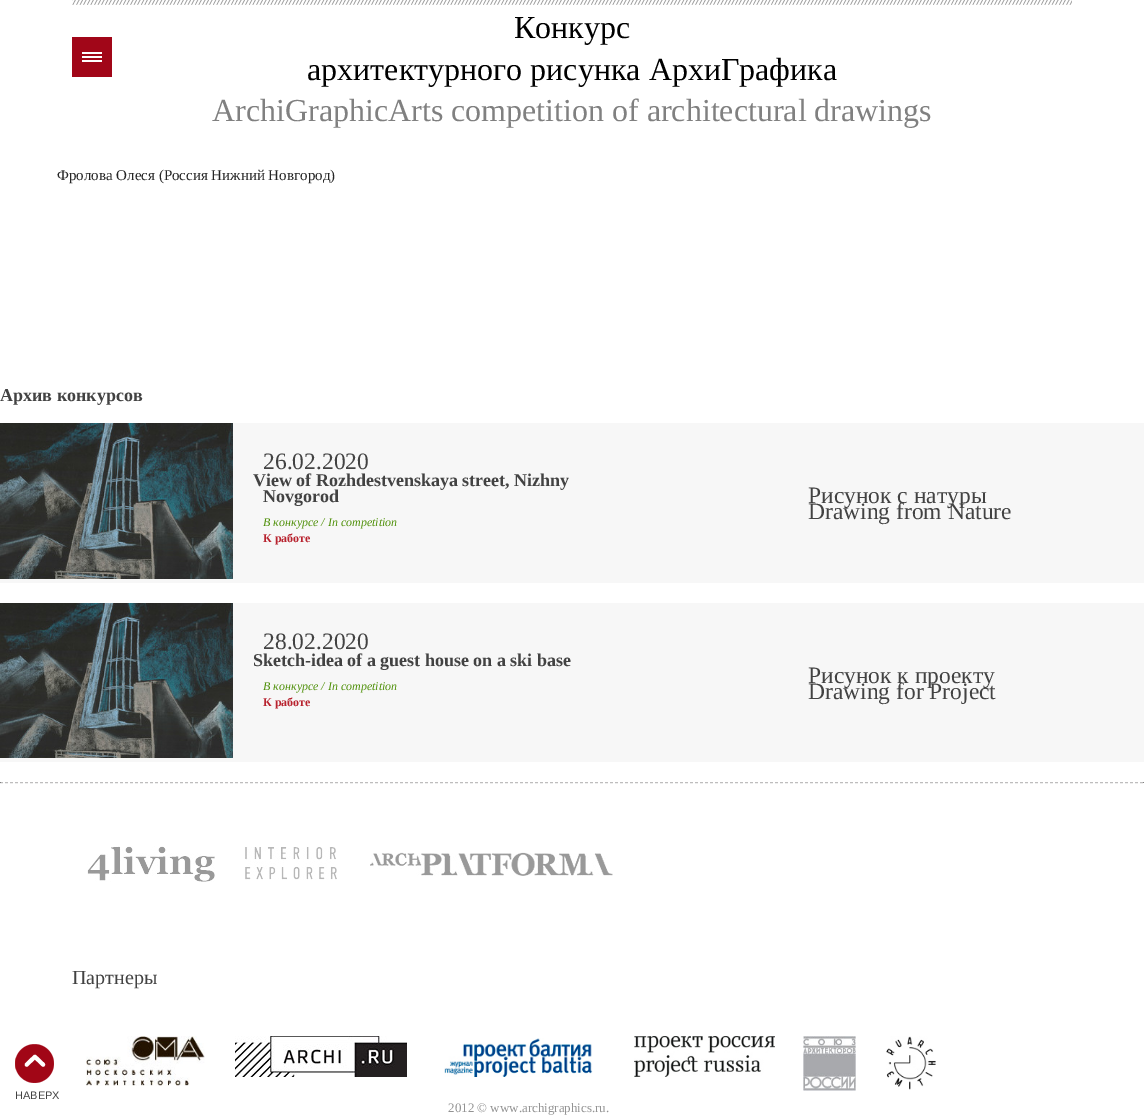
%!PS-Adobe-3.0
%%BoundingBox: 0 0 1144 1116
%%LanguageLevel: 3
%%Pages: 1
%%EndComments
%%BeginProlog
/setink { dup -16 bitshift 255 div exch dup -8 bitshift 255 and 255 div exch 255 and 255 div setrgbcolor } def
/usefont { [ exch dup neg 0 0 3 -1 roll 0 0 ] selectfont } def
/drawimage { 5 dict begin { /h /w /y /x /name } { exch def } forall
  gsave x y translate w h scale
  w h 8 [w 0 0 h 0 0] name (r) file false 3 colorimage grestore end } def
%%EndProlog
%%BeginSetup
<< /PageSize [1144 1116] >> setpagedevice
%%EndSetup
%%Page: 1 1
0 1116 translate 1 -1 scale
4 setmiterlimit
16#FFFFFF setink
0 0 1144 1116 rectfill
(img1.raw) 72 0 1000 5 drawimage
(img2.raw) 72 37 40 40 drawimage
/LiberationSerif-Regular 32 usefont
16#000000 setink
514 38 moveto (Конкурс) show
307 80 moveto (архитектурного рисунка АрхиГрафика) show
16#808080 setink
212 121 moveto (ArchiGraphicArts competition of architectural drawings) show
/LiberationSerif-Regular 15 usefont
16#252525 setink
57 180 moveto (Фролова Олеся \(Россия Нижний Новгород\)) show
/LiberationSerif-Bold 18 usefont
16#424242 setink
0 401 moveto (Архив конкурсов) show
16#F7F7F7 setink
0 423 1144 160 rectfill
(img3.raw) 0 423 233 156 drawimage
/LiberationSerif-Regular 23.5 usefont
16#424242 setink
263 469 moveto (26.02.2020) show
/LiberationSerif-Bold 18 usefont
253 486 moveto (View of Rozhdestvenskaya street, Nizhny) show
263 502 moveto (Novgorod) show
/LiberationSerif-Italic 12 usefont
16#52920D setink
263 526 moveto (В конкурсе / In competition) show
/LiberationSerif-Bold 12 usefont
16#B8232F setink
263 542 moveto (К работе) show
/LiberationSerif-Regular 23.5 usefont
16#424242 setink
808 503 moveto (Рисунок с натуры) show
808 519 moveto (Drawing from Nature) show
16#F7F7F7 setink
0 603 1144 159 rectfill
(img4.raw) 0 603 233 155 drawimage
16#424242 setink
263 649 moveto (28.02.2020) show
/LiberationSerif-Bold 18 usefont
253 666 moveto (Sketch-idea of a guest house on a ski base) show
/LiberationSerif-Italic 12 usefont
16#52920D setink
263 690 moveto (В конкурсе / In competition) show
/LiberationSerif-Bold 12 usefont
16#B8232F setink
263 706 moveto (К работе) show
/LiberationSerif-Regular 23.5 usefont
16#424242 setink
808 683 moveto (Рисунок к проекту) show
808 699 moveto (Drawing for Project) show
16#BEBDBD setink
[3 2] 0 setdash
0 782.5 moveto 1144 782.5 lineto stroke
16#808080 setink
1143 782 1 1 rectfill
0 782 1 1 rectfill
(img5.raw) 87 846 128 36 drawimage
(img6.raw) 245 847 92 33 drawimage
(img7.raw) 370 852 243 24 drawimage
/LiberationSerif-Regular 20 usefont
16#424242 setink
72 984 moveto (Партнеры) show
(img8.raw) 86 1036 119 50 drawimage
(img9.raw) 235 1036 172 41 drawimage
(img10.raw) 444 1038 149 39 drawimage
(img11.raw) 634 1036 141 41 drawimage
(img12.raw) 803 1036 53 55 drawimage
(img13.raw) 886 1036 50 54 drawimage
/LiberationSerif-Regular 13 usefont
16#939393 setink
448 1112 moveto (2012 © www.archigraphics.ru.) show
(img14.raw) 15 1044 39 39 drawimage
/LiberationSans-Regular 11 usefont
16#424242 setink
15 1099 moveto (НАВЕРХ) show
showpage
%%EOF
